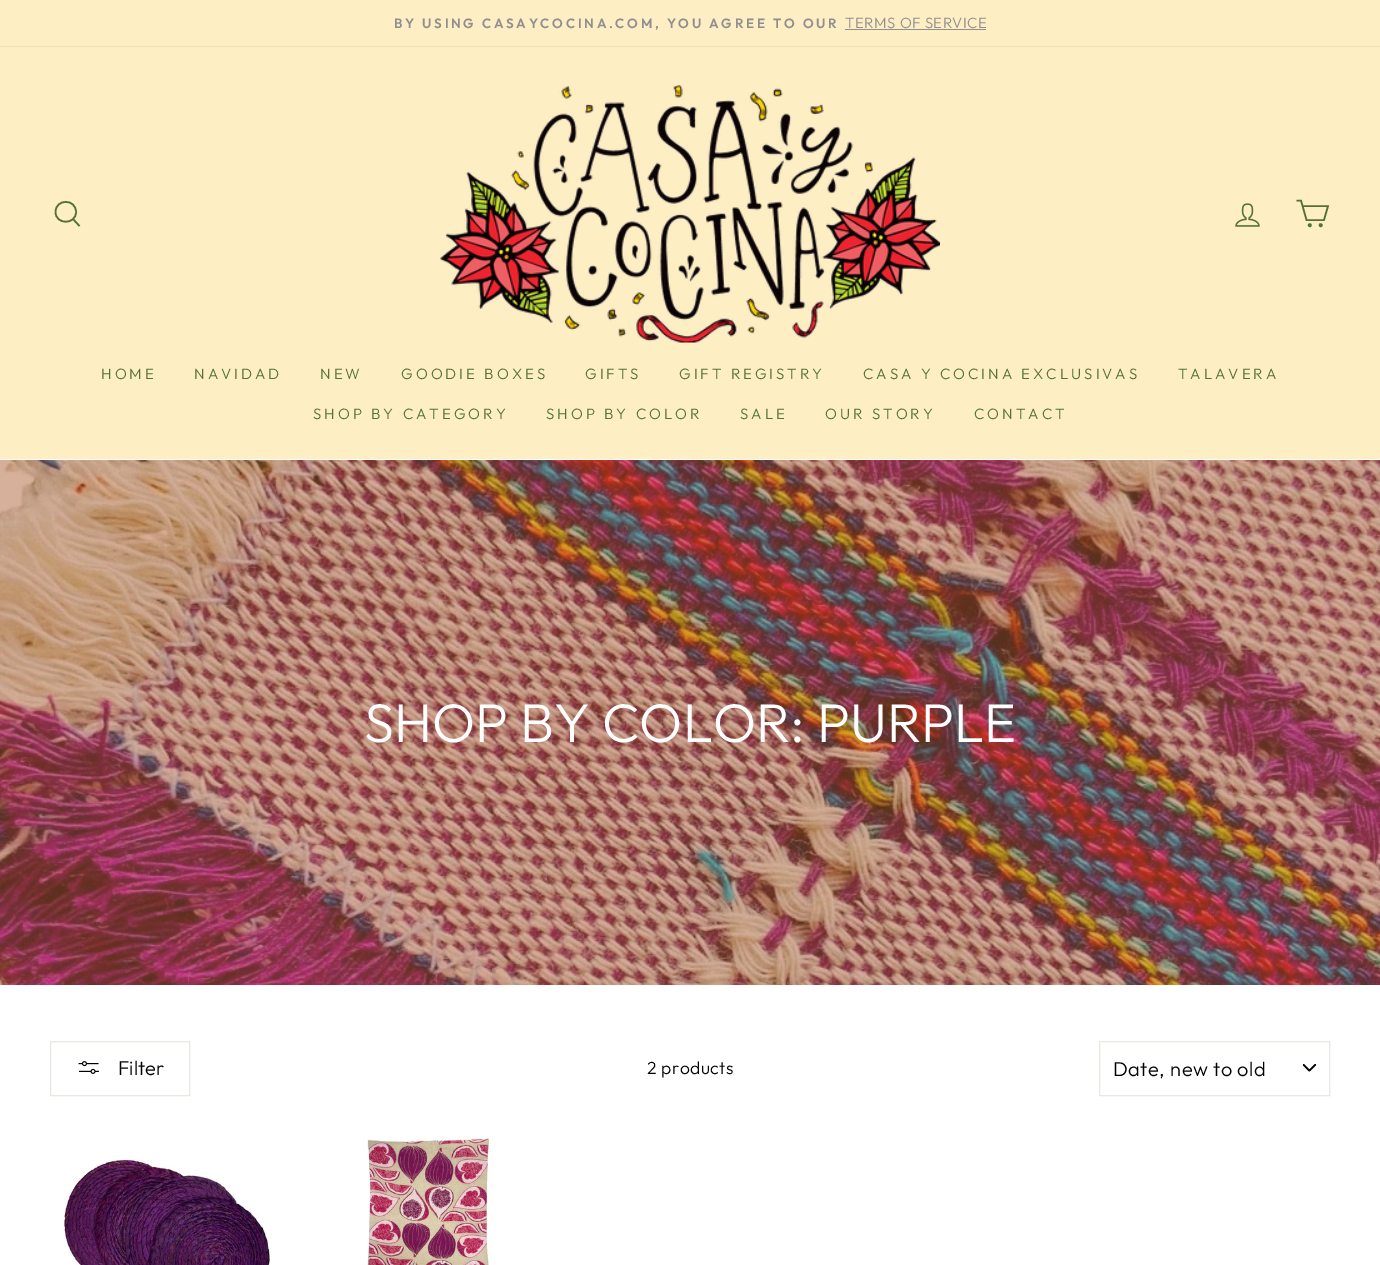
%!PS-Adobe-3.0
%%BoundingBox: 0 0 1380 1265
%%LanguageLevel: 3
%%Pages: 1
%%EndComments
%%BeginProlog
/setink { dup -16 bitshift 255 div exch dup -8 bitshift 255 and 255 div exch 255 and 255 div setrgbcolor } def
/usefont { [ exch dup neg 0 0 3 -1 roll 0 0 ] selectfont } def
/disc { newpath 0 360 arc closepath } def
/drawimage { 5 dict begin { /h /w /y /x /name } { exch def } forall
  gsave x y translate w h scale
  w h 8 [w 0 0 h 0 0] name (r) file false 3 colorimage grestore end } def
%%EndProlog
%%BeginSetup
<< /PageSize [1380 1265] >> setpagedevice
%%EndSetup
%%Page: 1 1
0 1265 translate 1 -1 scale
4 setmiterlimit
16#FFFFFF setink
0 0 1380 1265 rectfill
16#FEEEC4 setink
0 0 1380 46 rectfill
/Outfit-SemiBold 13.4 usefont
16#908E8E setink
394 28 moveto 2.7 0 (BY USING CASAYCOCINA.COM, YOU AGREE TO OUR) ashow
/Outfit-Light 14.9 usefont
845 28 moveto 0.5 0 (TERMS OF SERVICE) ashow
[
    [845 29 141 1 16#908E8E]
    [0 47 1380 412 16#FEEEC4]
    [0 46 1380 1 16#EDE2B6]
] { aload pop setink rectfill } forall
16#537234 setink
1.6 setlinewidth
76 212 moveto 76 225 55.5 225 55.5 212 curveto 55.5 198.5 76 198.5 76 212 curveto closepath 79.5 226 moveto 73 219 lineto stroke
(img1.raw) 440 85 500 258 drawimage
(img2.raw) 1235 203 25 24 drawimage
1302.5 206 moveto 1328 206 lineto 1324 220 lineto 1306.5 220 lineto 1301 200.5 lineto 1296.5 200.5 lineto stroke
1309.8 225.2 1.1 disc stroke
1320.7 225.2 1.1 disc stroke
/Outfit-Light 15 usefont
101 379 moveto 3 0 (HOME) ashow
194 379 moveto 3 0 (NAVIDAD) ashow
320 379 moveto 3 0 (NEW) ashow
401 379 moveto 3 0 (GOODIE BOXES) ashow
585 379 moveto 3 0 (GIFTS) ashow
679 379 moveto 3 0 (GIFT REGISTRY) ashow
863 379 moveto 3 0 (CASA Y COCINA EXCLUSIVAS) ashow
1178 379 moveto 3 0 (TALAVERA) ashow
313 419 moveto 3 0 (SHOP BY CATEGORY) ashow
546 419 moveto 3 0 (SHOP BY COLOR) ashow
740 419 moveto 3 0 (SALE) ashow
825 419 moveto 3 0 (OUR STORY) ashow
974 419 moveto 3 0 (CONTACT) ashow
(img3.raw) 0 460 1380 525 drawimage
/Outfit-Light 54.4 usefont
16#FFFFFF setink
364 742 moveto (SHOP BY COLOR: PURPLE) show
16#E8E8E1 setink
1 setlinewidth
50.5 1041.5 139 54 rectstroke
(img4.raw) 78 1061 21 13 drawimage
/Outfit-Light 20 usefont
16#000000 setink
118 1075 moveto (Filter) show
/Outfit-Light 17.5 usefont
647 1074 moveto 0.5 0 (2 products) ashow
(img5.raw) 1303 1064 13 8 drawimage
16#E8E8E1 setink
1099.5 1041.5 230 54 rectstroke
/Outfit-Light 20 usefont
16#000000 setink
1113 1076 moveto 0.5 0 (Date, new to old) ashow
(img6.raw) 63 1158 207 107 drawimage
(img7.raw) 367 1136 126 129 drawimage
showpage
%%EOF
